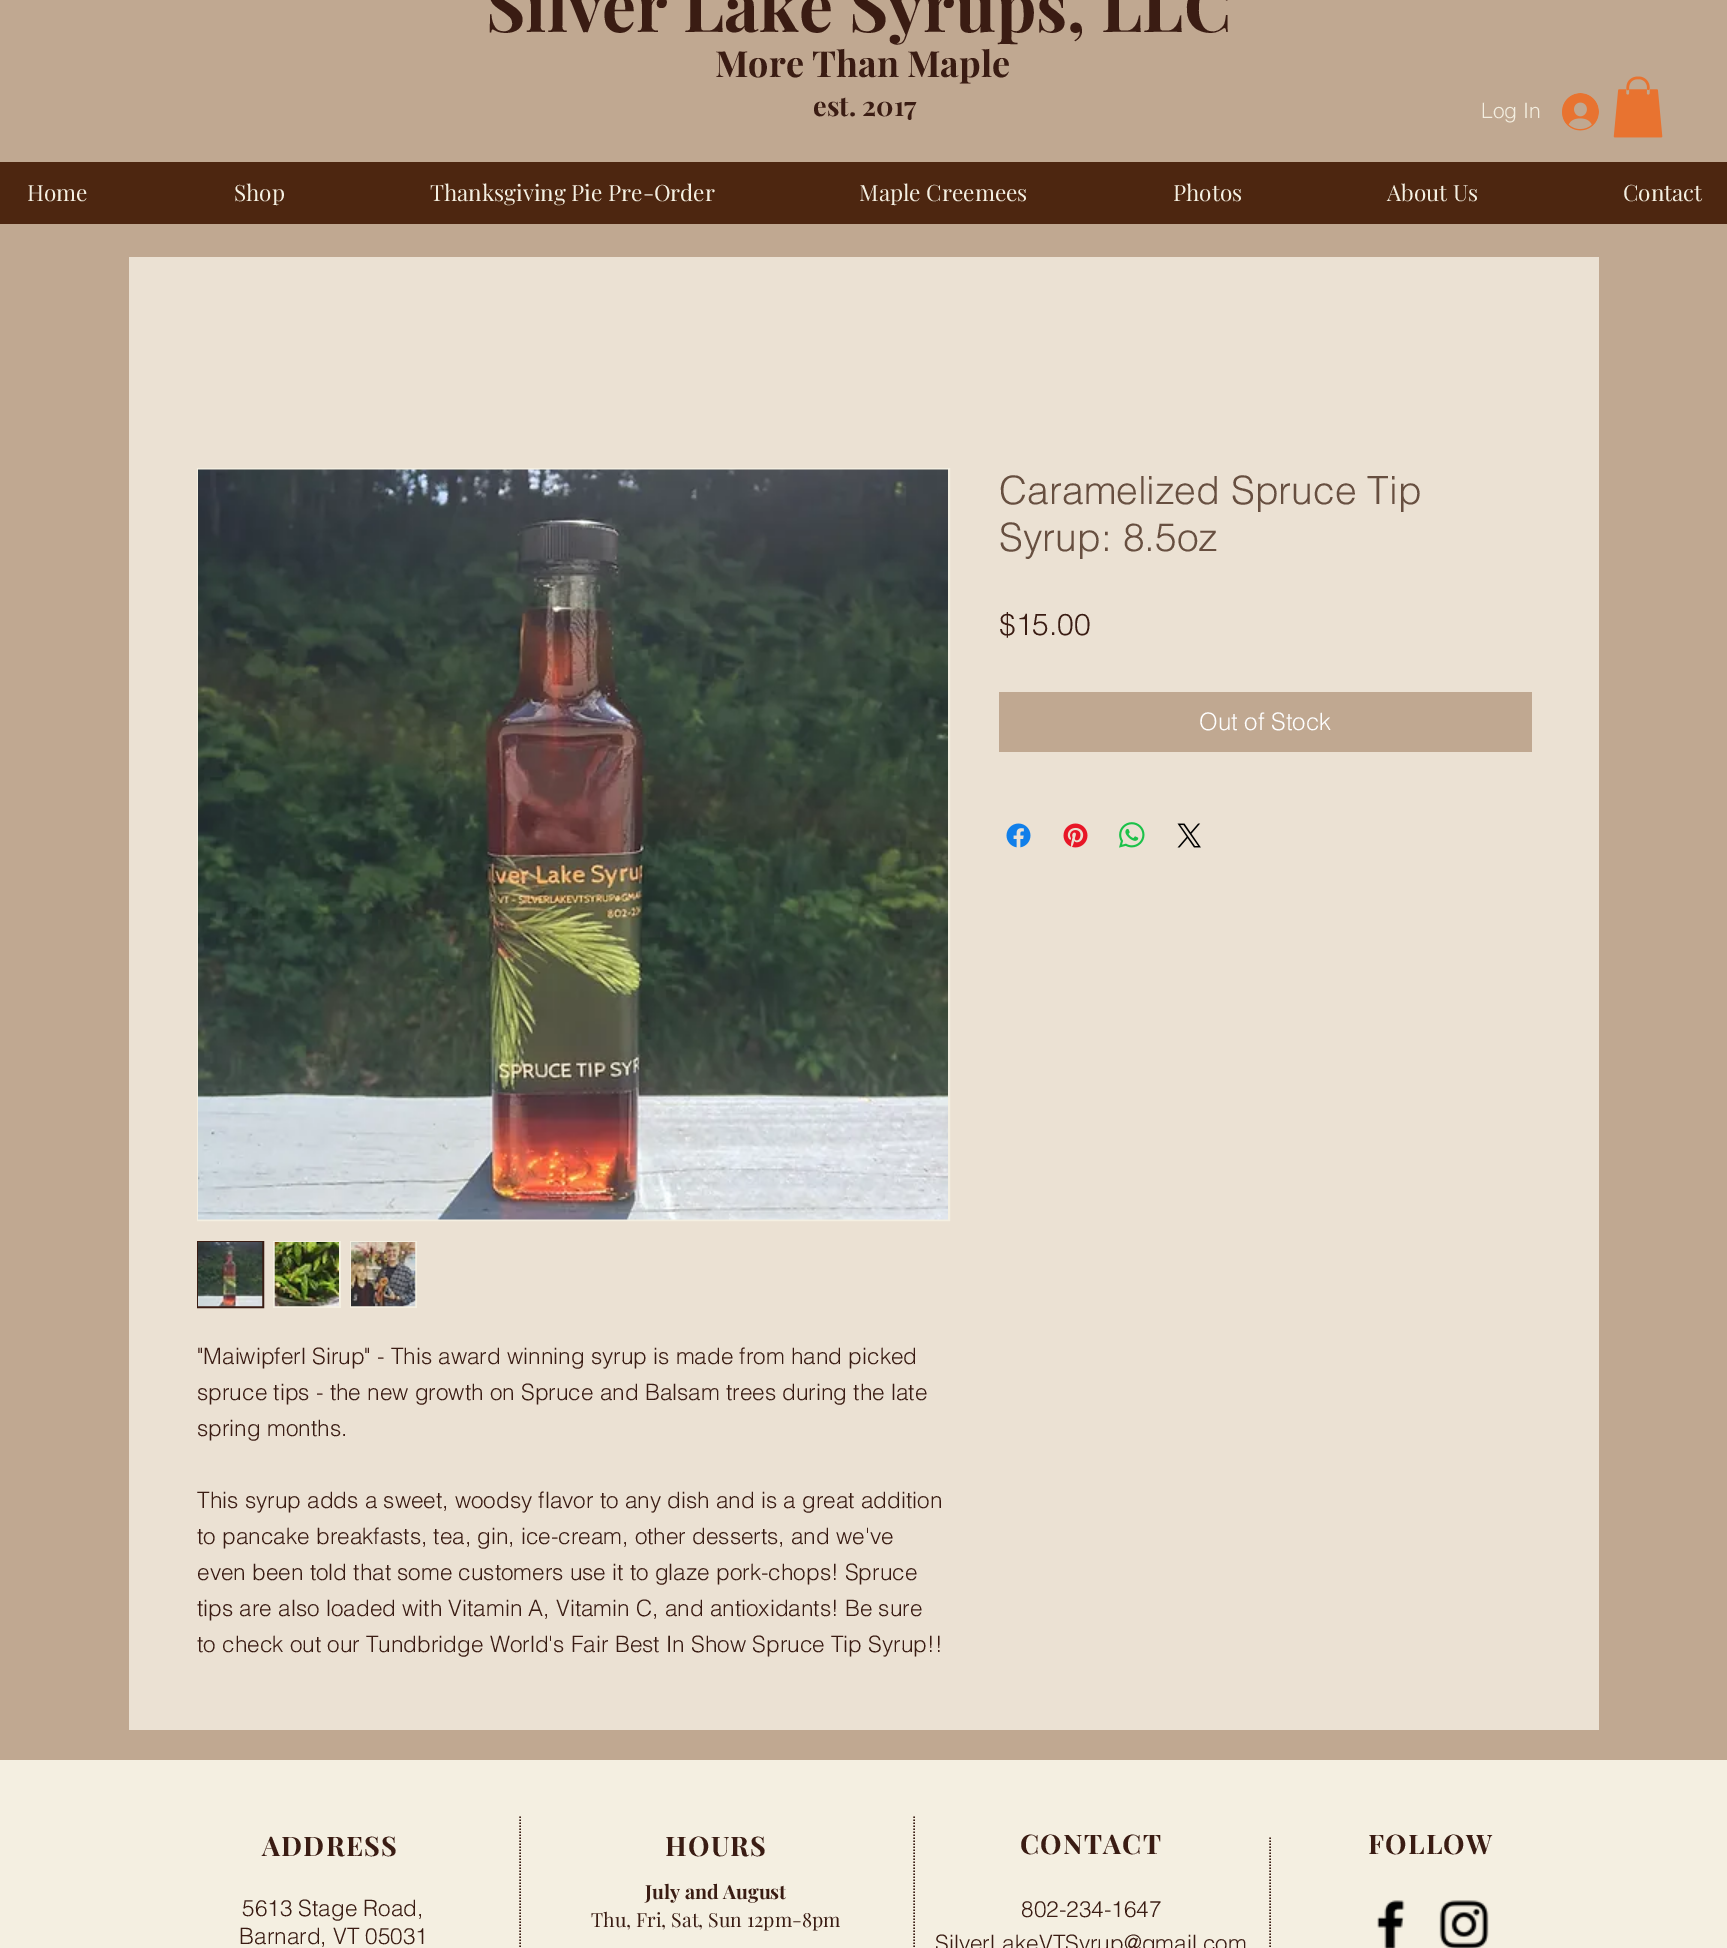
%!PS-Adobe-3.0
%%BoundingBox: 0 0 1727 1948
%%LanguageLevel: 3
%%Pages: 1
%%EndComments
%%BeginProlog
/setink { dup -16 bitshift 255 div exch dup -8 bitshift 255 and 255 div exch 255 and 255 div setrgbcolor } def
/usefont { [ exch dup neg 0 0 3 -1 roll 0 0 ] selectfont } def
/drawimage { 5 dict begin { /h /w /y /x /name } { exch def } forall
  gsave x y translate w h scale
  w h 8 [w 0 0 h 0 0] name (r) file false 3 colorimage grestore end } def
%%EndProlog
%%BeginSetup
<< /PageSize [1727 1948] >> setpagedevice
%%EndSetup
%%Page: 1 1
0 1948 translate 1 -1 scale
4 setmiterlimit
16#C0A891 setink
0 0 1727 1948 rectfill
/PlayfairDisplay-Bold 67.5 usefont
16#3A1C13 setink
486 32 moveto (Silver Lake Syrups, LLC) show
/PlayfairDisplay-Bold 36 usefont
715 77 moveto (More Than Maple) show
/PlayfairDisplay-Bold 27 usefont
813 116 moveto (est. 2017) show
/helvetica-Light 21 usefont
16#F4EFE1 setink
1481 118 moveto (Log In) show
(img1.raw) 1562 93 37 38 drawimage
(img2.raw) 1613 76 50 62 drawimage
16#4D2610 setink
0 162 1727 62 rectfill
/PlayfairDisplay-Regular 22.5 usefont
16#F4EFE1 setink
[
    [(Home) 27 201]
    [(Shop) 234 201]
    [(Thanksgiving Pie Pre-Order) 430 201]
    [(Maple Creemees) 859 201]
    [(Photos) 1173 201]
    [(About Us) 1387 201]
    [(Contact) 1623 201]
] { aload pop moveto show } forall
16#EBE1D3 setink
129 257 1470 1473 rectfill
/helvetica-Light 39 usefont
16#674F40 setink
999 504 moveto (Caramelized Spruce Tip) show
999 551 moveto (Syrup: 8.5oz) show
/helvetica-Light 30 usefont
16#3A1C13 setink
999 635 moveto ($15.00) show
16#C0A891 setink
999 692 533 60 rectfill
/helvetica-Light 24 usefont
16#FFFFFF setink
1199 730 moveto (Out of Stock) show
(img3.raw) 1006 823 25 25 drawimage
(img4.raw) 1063 823 25 25 drawimage
(img5.raw) 1119 822 26 26 drawimage
(img6.raw) 1177 823 24 25 drawimage
16#F4EFE1 setink
2 setlinewidth
198 469 751 751 rectstroke
(img7.raw) 198 469 750 751 drawimage
16#3A1C13 setink
198 1242 65 65 rectstroke
(img8.raw) 198 1242 65 65 drawimage
16#F4EFE1 setink
273 1241 68 67 rectfill
(img9.raw) 274 1242 65 65 drawimage
350 1241 67 67 rectfill
(img10.raw) 351 1242 65 65 drawimage
/helvetica-Light 22.5 usefont
16#3A1C13 setink
[
    [("Maiwipferl Sirup" - This award winning syrup is made from hand picked) 197 1364]
    [(spruce tips - the new growth on Spruce and Balsam trees during the late) 197 1400]
    [(spring months.) 197 1436]
    [(This syrup adds a sweet, woodsy flavor to any dish and is a great addition) 197 1508]
    [(to pancake breakfasts, tea, gin, ice-cream, other desserts, and we've) 197 1544]
    [(even been told that some customers use it to glaze pork-chops! Spruce) 197 1580]
    [(tips are also loaded with Vitamin A, Vitamin C, and antioxidants! Be sure) 197 1616]
    [(to check out our Tundbridge World's Fair Best In Show Spruce Tip Syrup!!) 197 1652]
] { aload pop moveto show } forall
16#F4EFE1 setink
0 1760 1727 188 rectfill
/PlayfairDisplay-Bold 27 usefont
16#3A1C13 setink
262 1856 moveto 1.25 0 (ADDRESS) ashow
1.5 setlinewidth
[1.5 1.5] 0 setdash
520 1816.5 moveto 520 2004 lineto stroke
665 1856 moveto 1.25 0 (HOURS) ashow
914 1816.5 moveto 914 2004 lineto stroke
1020 1854 moveto 1.25 0 (CONTACT) ashow
1270 1837.5 moveto 1270 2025 lineto stroke
1368 1854 moveto 1.25 0 (FOLLOW) ashow
/helvetica-Light 22.5 usefont
242 1916 moveto (5613 Stage Road,) show
239 1944 moveto (Barnard, VT 05031) show
/PlayfairDisplay-Bold 19.5 usefont
645 1899 moveto (July and August) show
/PlayfairDisplay-Regular 19.5 usefont
591 1927 moveto (Thu, Fri, Sat, Sun 12pm-8pm) show
/helvetica-Light 22.5 usefont
1021 1917 moveto (802-234-1647) show
935 1951 moveto (SilverLakeVTSyrup@gmail.com) show
(img11.raw) 1377 1900 28 48 drawimage
(img12.raw) 1439 1900 50 48 drawimage
showpage
%%EOF
